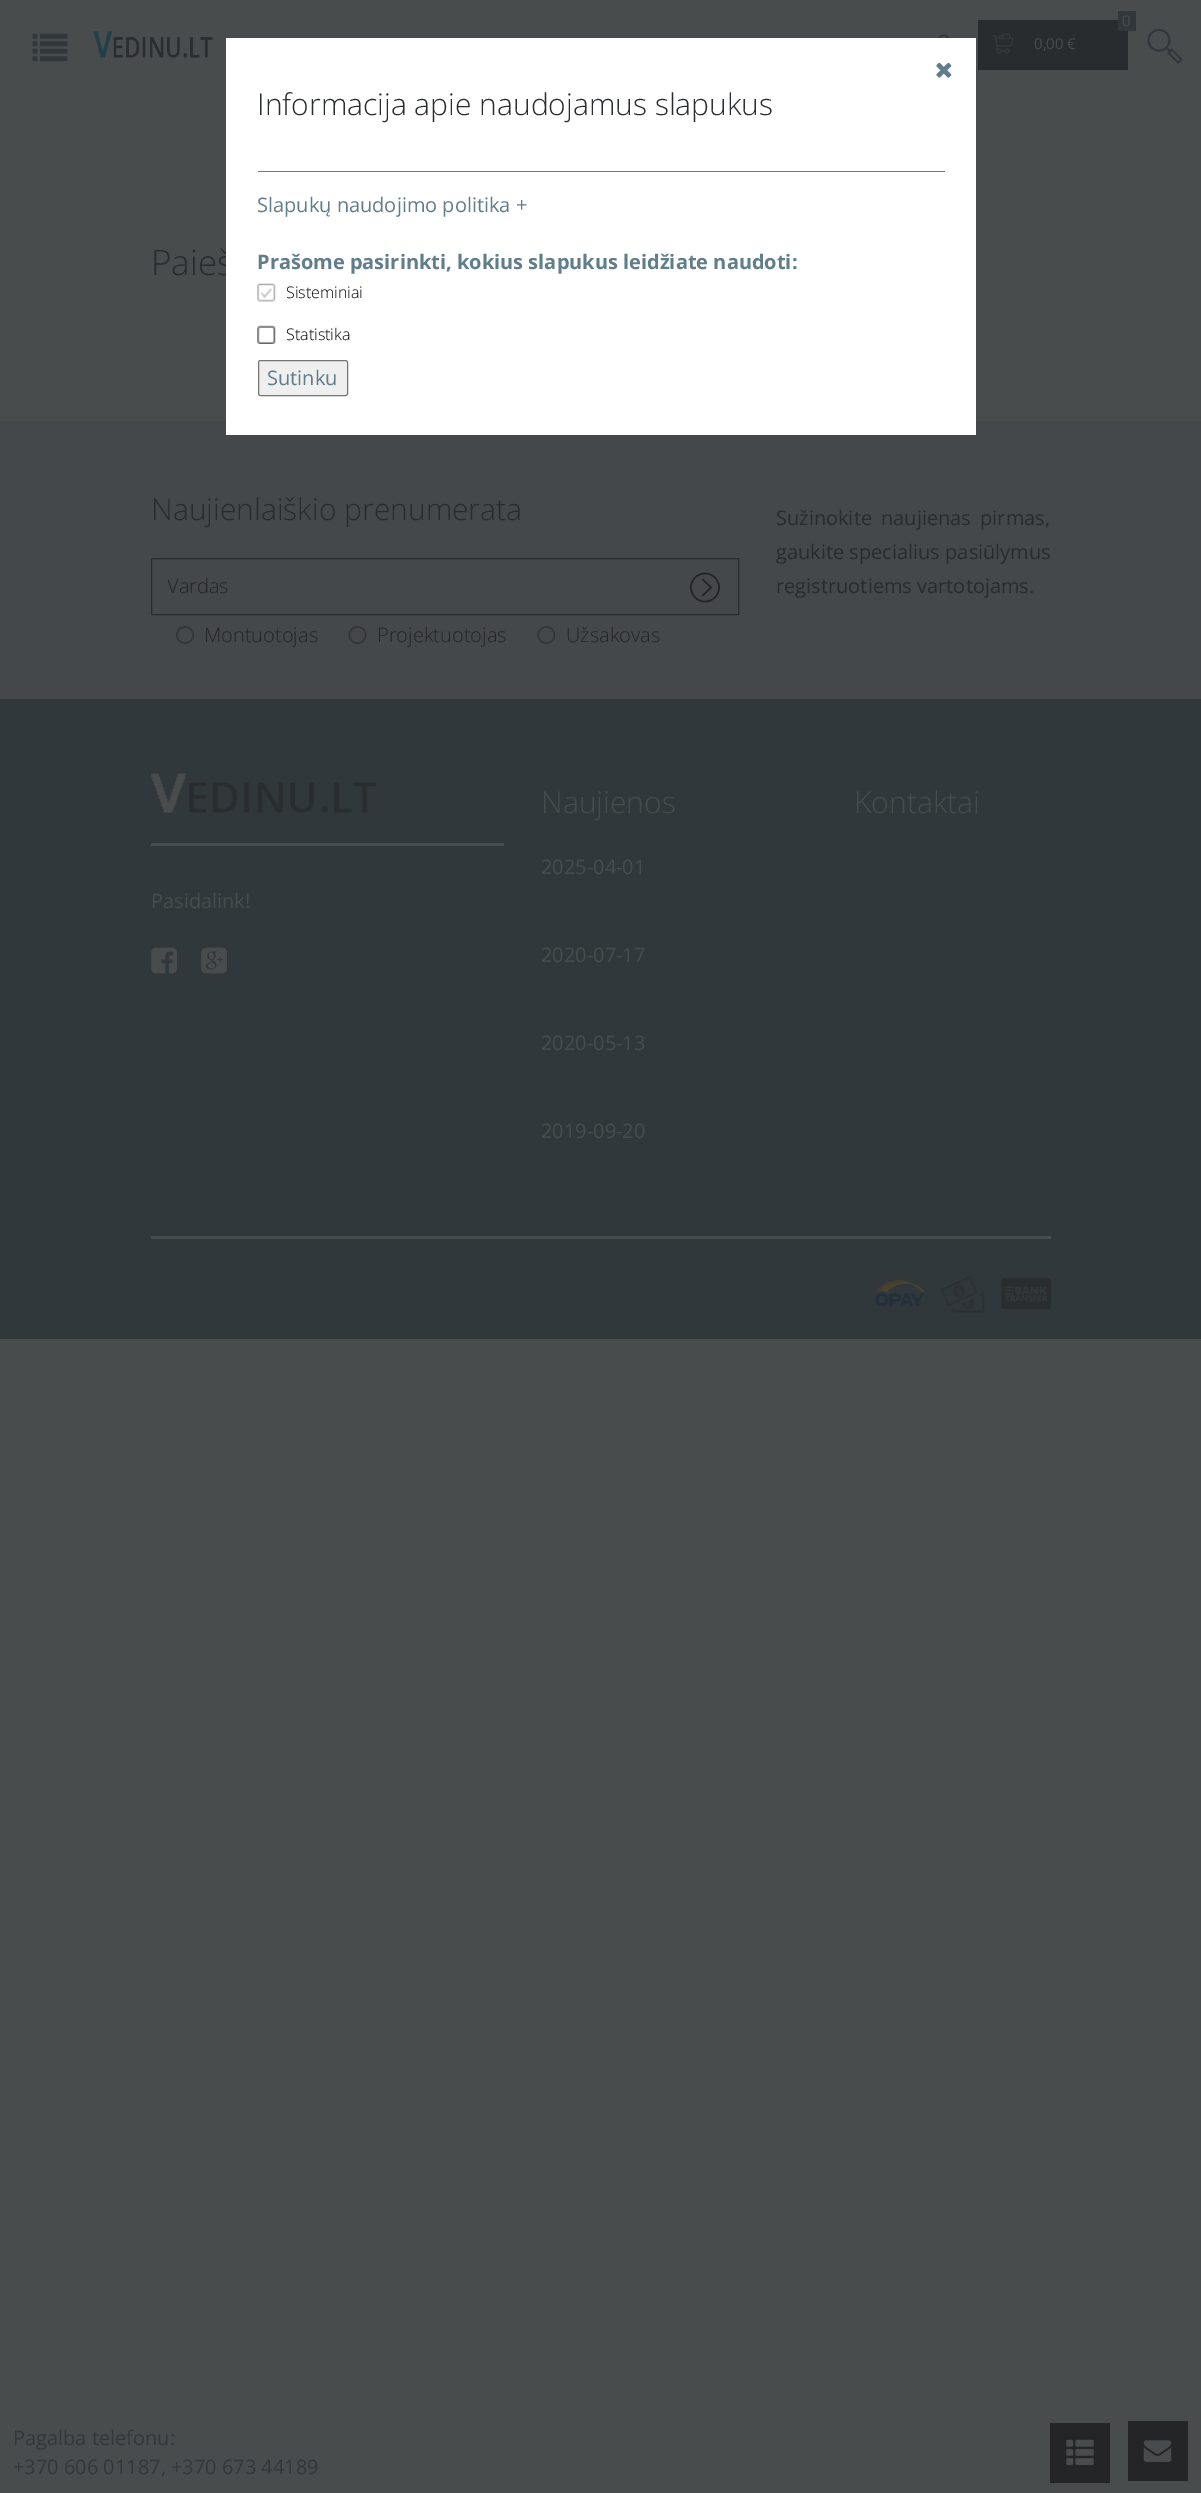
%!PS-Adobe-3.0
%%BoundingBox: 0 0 1201 2493
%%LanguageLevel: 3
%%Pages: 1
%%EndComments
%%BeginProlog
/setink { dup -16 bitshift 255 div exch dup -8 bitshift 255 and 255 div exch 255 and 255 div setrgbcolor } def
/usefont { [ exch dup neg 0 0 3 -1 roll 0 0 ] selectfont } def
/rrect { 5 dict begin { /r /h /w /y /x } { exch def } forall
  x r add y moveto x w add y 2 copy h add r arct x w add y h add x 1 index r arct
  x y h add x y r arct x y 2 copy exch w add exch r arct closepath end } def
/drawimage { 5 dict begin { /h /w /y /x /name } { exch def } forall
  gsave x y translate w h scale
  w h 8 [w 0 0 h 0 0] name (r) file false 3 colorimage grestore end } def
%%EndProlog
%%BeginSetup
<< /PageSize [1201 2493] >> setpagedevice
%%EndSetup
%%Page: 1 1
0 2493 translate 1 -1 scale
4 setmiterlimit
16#494C4D setink
0 0 1201 2493 rectfill
(img1.raw) 32 33 36 29 drawimage
(img2.raw) 93 31 120 27 drawimage
(img3.raw) 938 34 12 4 drawimage
16#292C2E setink
978 20 150 50 rectfill
16#31383C setink
1118 11 18 20 rectfill
/OpenSans-Regular 15 usefont
16#494C4D setink
1122 26 moveto (0) show
(img4.raw) 992 33 22 21 drawimage
1034 49 moveto (0,00 €) show
(img5.raw) 1147 28 36 36 drawimage
/OpenSans-Light 35 usefont
16#292C2E setink
151 275 moveto (Paieš) show
[
    [0 421 1201 278 16#45484A]
    [226 38 750 397 16#FFFFFF]
    [258 171 687 1 16#607D8B]
] { aload pop setink rectfill } forall
(img6.raw) 936 62 16 16 drawimage
/OpenSans-Light 30 usefont
16#292C2E setink
257 115 moveto (Informacija apie naudojamus slapukus) show
/OpenSans-Regular 20 usefont
16#607D8B setink
257 212 moveto (Slapukų naudojimo politika +) show
/OpenSans-Bold 20 usefont
257 269 moveto (Prašome pasirinkti, kokius slapukus leidžiate naudoti:) show
(img7.raw) 257 283 19 19 drawimage
/OpenSans-Light 16 usefont
16#000000 setink
286 298 moveto (Sisteminiai) show
(img8.raw) 257 325 19 19 drawimage
286 340 moveto (Statistika) show
16#EFEFEF setink
258.5 360.5 89 35 2 rrect gsave fill grestore
16#767676 setink
stroke
/OpenSans-Regular 20 usefont
16#607D8B setink
267 385 moveto (Sutinku) show
/OpenSans-Light 30 usefont
16#292C2E setink
151 520 moveto (Naujienlaiškio prenumerata) show
151.5 558.5 587 56 rectstroke
gsave
168 573 507 27 rectclip
/OpenSans-Light 20 usefont
16#232527 setink
167 593 moveto (Vardas) show
grestore
(img9.raw) 690 572 30 31 drawimage
(img10.raw) 176 626 18 18 drawimage
/OpenSans-Light 20 usefont
16#232527 setink
204 642 moveto (Montuotojas) show
(img11.raw) 348 626 19 18 drawimage
377 642 moveto (Projektuotojas) show
(img12.raw) 537 626 18 18 drawimage
566 642 moveto (Užsakovas) show
/OpenSans-Regular 20 usefont
16#292C2E setink
776 525 moveto 4 0 32 (Sužinokite naujienas pirmas,) widthshow
776 559 moveto (gaukite specialius pasiūlymus) show
776 593 moveto (registruotiems vartotojams.) show
16#31383C setink
0 699 1201 640 rectfill
16#494C4D setink
151 843 353 3 rectfill
(img13.raw) 151 773 226 40 drawimage
151 908 moveto (Pasidalink!) show
(img14.raw) 151 947 26 27 drawimage
(img15.raw) 201 947 26 27 drawimage
/OpenSans-Light 30 usefont
541 813 moveto (Naujienos) show
/OpenSans-Regular 20 usefont
[
    [(2025-04-01) 541 874]
    [(2020-07-17) 541 962]
    [(2020-05-13) 541 1050]
    [(2019-09-20) 541 1138]
] { aload pop moveto show } forall
/OpenSans-Light 30 usefont
854 813 moveto (Kontaktai) show
151 1236 900 3 rectfill
(img16.raw) 875 1280 50 27 drawimage
(img17.raw) 939 1271 47 44 drawimage
(img18.raw) 1001 1278 51 32 drawimage
/OpenSans-Regular 20 usefont
16#31383C setink
13 2445 moveto (Pagalba telefonu:) show
13 2474 moveto (+370 606 01187, +370 673 44189) show
16#232527 setink
1050 2423 60 60 rectfill
(img19.raw) 1066 2439 28 26 drawimage
1128 2421 60 60 rectfill
(img20.raw) 1143 2440 29 22 drawimage
showpage
%%EOF
